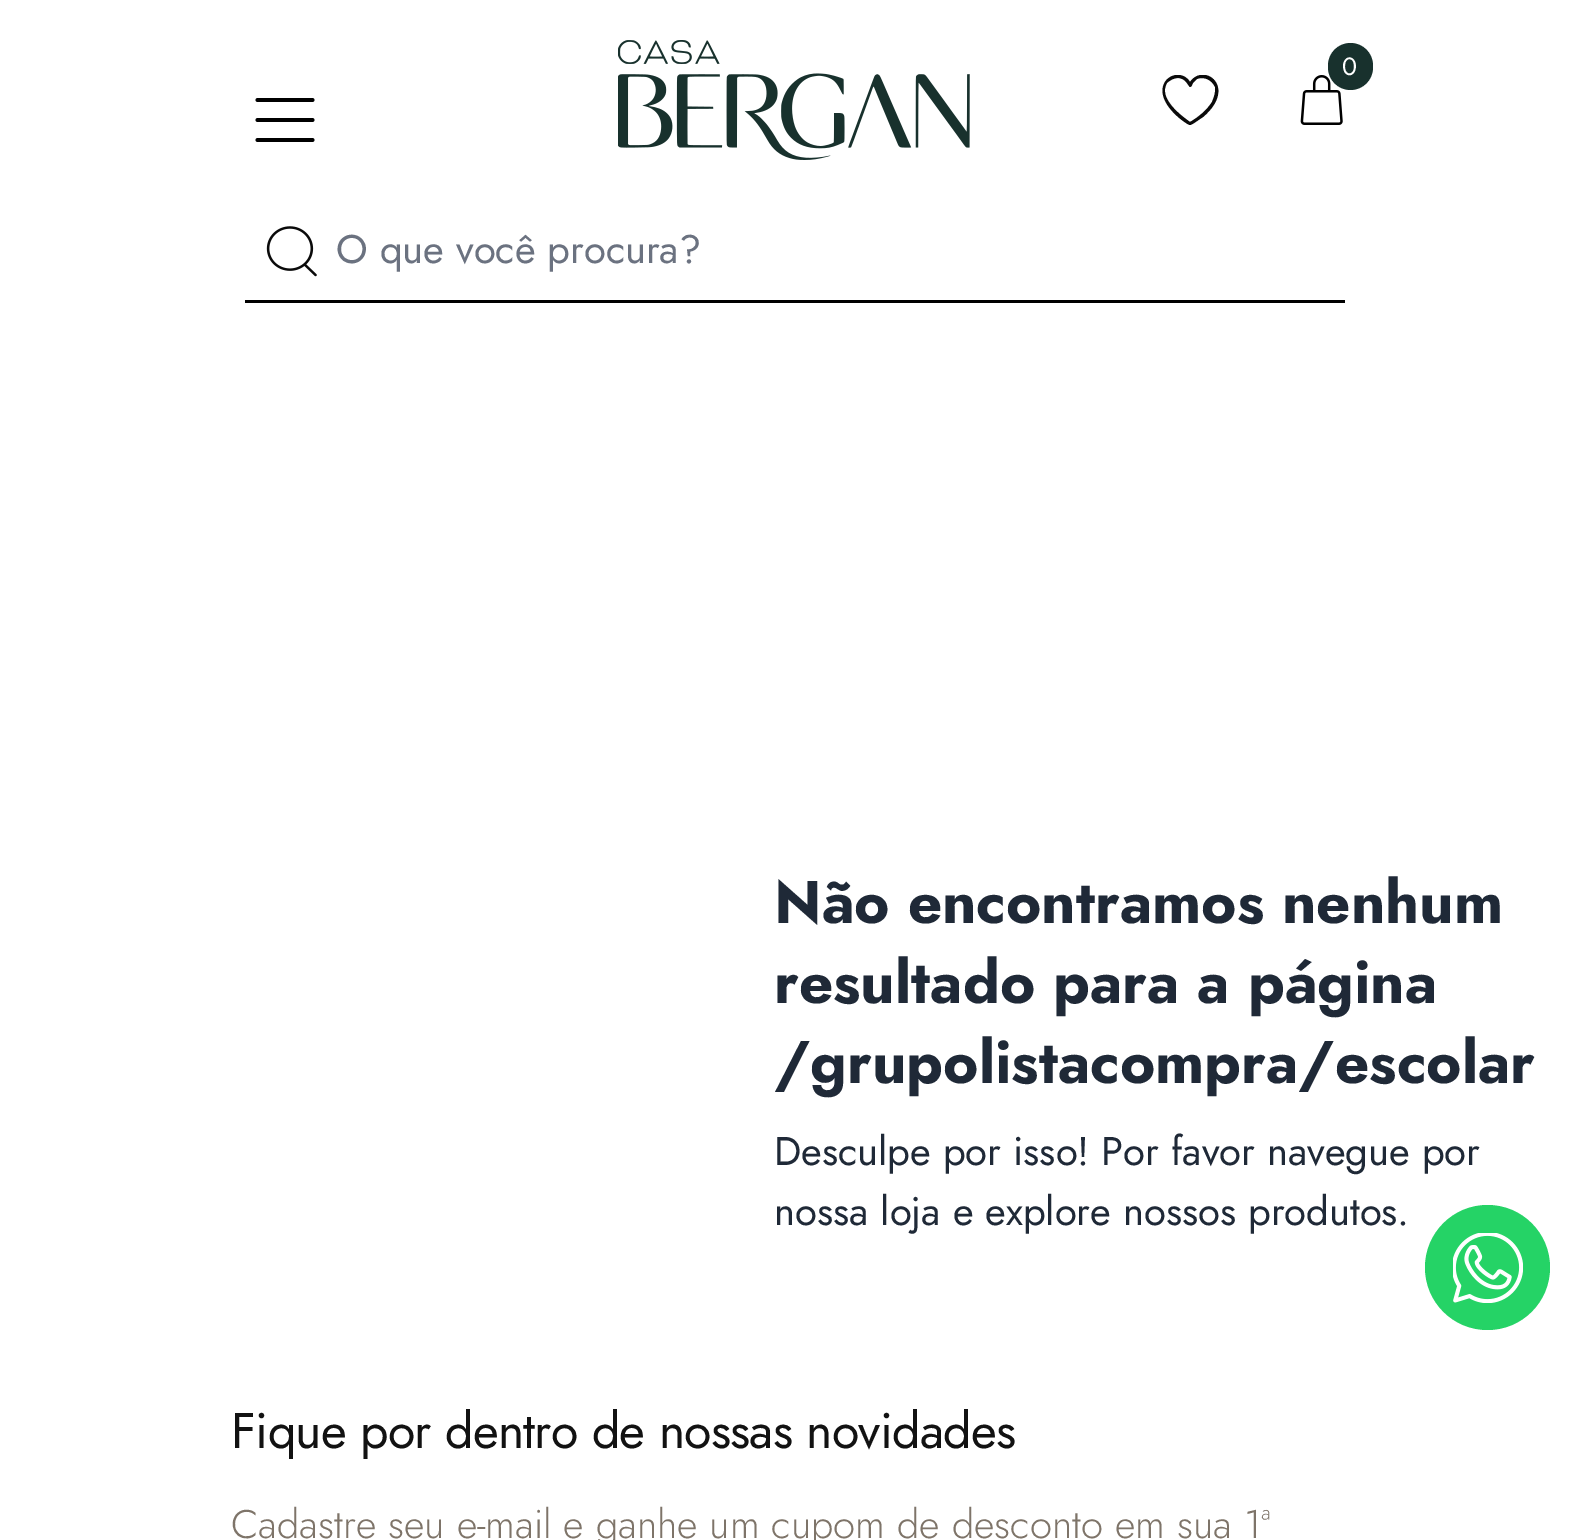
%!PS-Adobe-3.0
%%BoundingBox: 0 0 1586 1540
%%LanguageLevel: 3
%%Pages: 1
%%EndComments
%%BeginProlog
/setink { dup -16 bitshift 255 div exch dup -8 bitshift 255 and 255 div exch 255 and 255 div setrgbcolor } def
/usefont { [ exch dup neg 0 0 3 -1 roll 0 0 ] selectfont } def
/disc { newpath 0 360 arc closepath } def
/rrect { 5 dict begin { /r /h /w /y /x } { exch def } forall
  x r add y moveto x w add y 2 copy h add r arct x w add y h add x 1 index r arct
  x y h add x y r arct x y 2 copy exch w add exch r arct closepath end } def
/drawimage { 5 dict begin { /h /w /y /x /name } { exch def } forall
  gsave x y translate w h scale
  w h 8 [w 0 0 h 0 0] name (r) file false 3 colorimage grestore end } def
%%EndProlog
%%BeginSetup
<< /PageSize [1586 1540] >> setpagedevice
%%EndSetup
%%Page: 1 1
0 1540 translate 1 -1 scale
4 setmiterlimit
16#FFFFFF setink
0 0 1586 1540 rectfill
(img1.raw) 618 40 352 120 drawimage
(img2.raw) 1300 75 43 50 drawimage
16#18312D setink
1328 43 45 47 22.5 rrect fill
/Jost-Regular 25 usefont
16#FFFFFF setink
1342 75 moveto (0) show
gsave
1160 75 60 50 rectclip
16#0A0A0A setink
1190 125 moveto 1188 125 1179 118 1177 116 curveto 1143 85 1178 63 1190 82 curveto 1204 62 1238 87 1203 117 curveto 1201 118 1192 125 1190 125 curveto closepath 1178 78 moveto 1174 78 1170 80 1167 83 curveto 1158 98 1180 115 1190 122 curveto 1199 117 1207 110 1212 102 curveto 1214 97 1216 92 1215 87 curveto 1212 80 1204 76 1197 79 curveto 1193 83 lineto 1192 84 1192 87 1190 87 curveto 1188 86 1186 78 1178 78 curveto closepath fill
grestore
16#000000 setink
3.8 setlinewidth
1 setlinecap
1 setlinejoin
257.5 120 moveto 312.5 120 lineto 257.5 100 moveto 312.5 100 lineto 257.5 140 moveto 312.5 140 lineto stroke
245 300 1100 3 rectfill
(img3.raw) 266 226 51 51 drawimage
/Jost-Regular 40 usefont
16#6B7280 setink
336 263 moveto (O que você procura?) show
/Jost-Bold 60 usefont
16#1F2937 setink
[
    [(Não encontramos nenhum) 774 923]
    [(resultado para a página) 774 1003]
    [(/grupolistacompra/escolar) 774 1083]
] { aload pop moveto show } forall
/Jost-Regular 40 usefont
774 1165 moveto (Desculpe por isso! Por favor navegue por) show
774 1225 moveto (nossa loja e explore nossos produtos.) show
16#25D366 setink
1487.5 1267.5 62.5 disc fill
(img4.raw) 1453 1233 70 70 drawimage
/Jost-Regular 50 usefont
16#121212 setink
231 1448 moveto -0.75 0 (Fique por dentro de nossas novidades) ashow
/Jost-Light 40 usefont
16#7E7469 setink
231 1538 moveto (Cadastre seu e-mail e ganhe um cupom de desconto em sua 1ª) show
showpage
%%EOF
